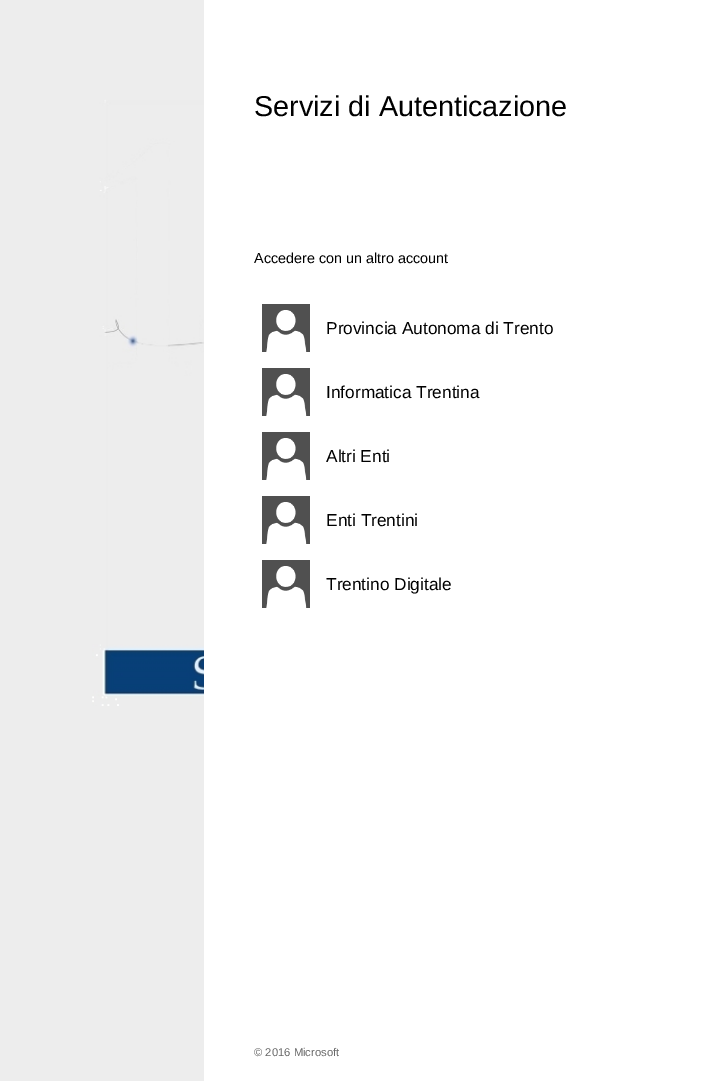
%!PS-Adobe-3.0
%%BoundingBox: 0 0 704 1081
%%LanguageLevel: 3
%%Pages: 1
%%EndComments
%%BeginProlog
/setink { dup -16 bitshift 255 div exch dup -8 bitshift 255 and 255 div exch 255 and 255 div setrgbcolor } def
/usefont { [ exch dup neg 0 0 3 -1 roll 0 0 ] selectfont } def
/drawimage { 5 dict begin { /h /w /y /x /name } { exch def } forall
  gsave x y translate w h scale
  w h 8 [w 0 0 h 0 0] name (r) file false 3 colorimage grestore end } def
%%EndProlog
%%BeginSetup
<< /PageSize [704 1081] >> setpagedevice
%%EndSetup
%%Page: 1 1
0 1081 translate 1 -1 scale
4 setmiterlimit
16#FFFFFF setink
0 0 704 1081 rectfill
(img1.raw) 0 0 204 1081 drawimage
/LiberationSans-Regular 28.75 usefont
16#000000 setink
254 116 moveto (Servizi di Autenticazione) show
/LiberationSans-Regular 14.4 usefont
254 263 moveto (Accedere con un altro account) show
(img2.raw) 262 304 48 48 drawimage
/LiberationSans-Regular 17.25 usefont
326 334 moveto (Provincia Autonoma di Trento) show
(img2.raw) 262 368 48 48 drawimage
326 398 moveto (Informatica Trentina) show
(img2.raw) 262 432 48 48 drawimage
326 462 moveto (Altri Enti) show
(img2.raw) 262 496 48 48 drawimage
326 526 moveto (Enti Trentini) show
(img3.raw) 262 560 48 48 drawimage
326 590 moveto (Trentino Digitale) show
/LiberationSans-Regular 11.25 usefont
16#696969 setink
254 1056 moveto (© 2016 Microsoft) show
showpage
%%EOF
